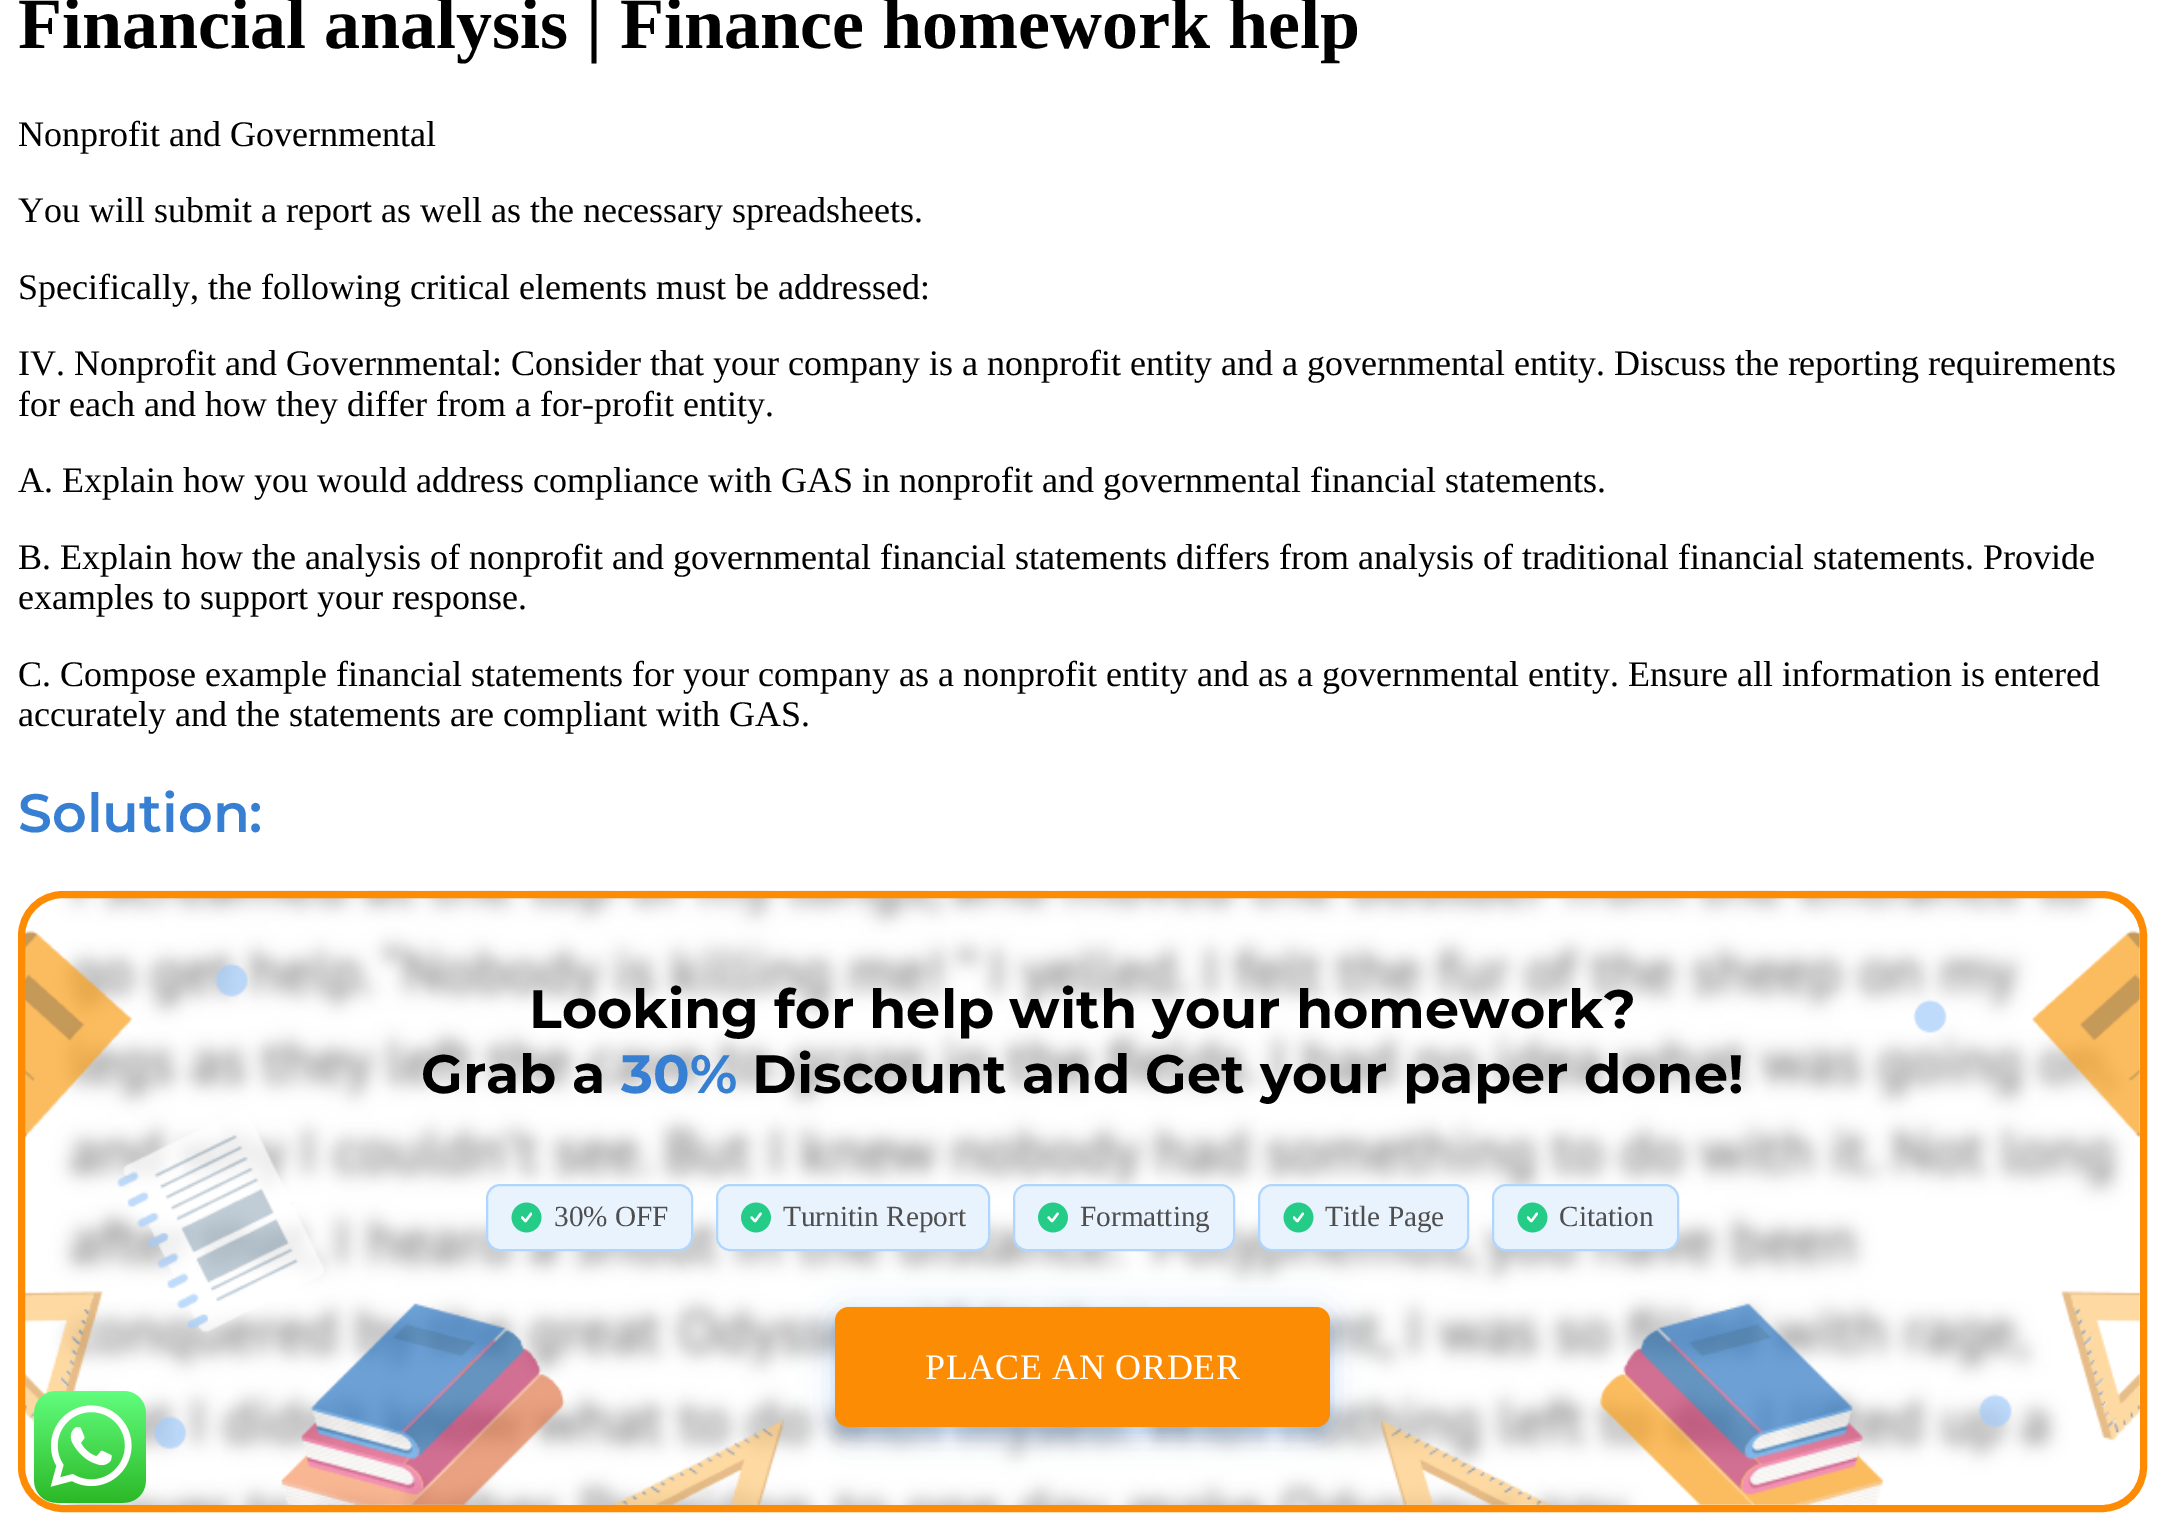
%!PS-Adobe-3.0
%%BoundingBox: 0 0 2164 1536
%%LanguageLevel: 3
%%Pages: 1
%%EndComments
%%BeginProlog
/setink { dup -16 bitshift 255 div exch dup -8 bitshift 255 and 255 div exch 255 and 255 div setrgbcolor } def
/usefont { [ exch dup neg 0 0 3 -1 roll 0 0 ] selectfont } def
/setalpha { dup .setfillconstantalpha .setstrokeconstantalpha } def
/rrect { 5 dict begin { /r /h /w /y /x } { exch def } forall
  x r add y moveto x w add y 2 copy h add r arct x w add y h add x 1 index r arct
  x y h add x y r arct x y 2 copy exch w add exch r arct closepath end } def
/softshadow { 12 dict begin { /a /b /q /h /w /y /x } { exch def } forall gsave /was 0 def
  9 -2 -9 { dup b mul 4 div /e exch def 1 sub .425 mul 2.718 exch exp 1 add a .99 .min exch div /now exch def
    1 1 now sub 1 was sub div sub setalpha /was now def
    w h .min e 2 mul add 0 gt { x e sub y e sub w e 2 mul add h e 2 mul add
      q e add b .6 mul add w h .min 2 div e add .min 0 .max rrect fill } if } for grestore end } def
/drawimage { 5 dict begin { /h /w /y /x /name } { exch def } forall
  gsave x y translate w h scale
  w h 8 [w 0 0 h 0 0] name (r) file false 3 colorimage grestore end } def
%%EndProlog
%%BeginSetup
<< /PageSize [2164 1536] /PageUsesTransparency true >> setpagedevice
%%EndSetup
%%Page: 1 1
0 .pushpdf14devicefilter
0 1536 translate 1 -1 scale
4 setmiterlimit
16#FFFFFF setink
0 0 2164 1536 rectfill
/LiberationSerif-Bold 72 usefont
16#000000 setink
18 48 moveto (Financial analysis | Finance homework help) show
/LiberationSerif-Regular 36 usefont
[
    [(Nonprofit and Governmental) 18 146]
    [(You will submit a report as well as the necessary spreadsheets.) 18 222]
    [(Specifically, the following critical elements must be addressed:) 18 299]
    [(IV. Nonprofit and Governmental: Consider that your company is a nonprofit entity and a governmental entity. Discuss the reporting requirements) 18 375]
    [(for each and how they differ from a for-profit entity.) 18 416]
    [(A. Explain how you would address compliance with GAS in nonprofit and governmental financial statements.) 18 492]
    [(B. Explain how the analysis of nonprofit and governmental financial statements differs from analysis of traditional financial statements. Provide) 18 569]
    [(examples to support your response.) 18 609]
    [(C. Compose example financial statements for your company as a nonprofit entity and as a governmental entity. Ensure all information is entered) 18 686]
    [(accurately and the statements are compliant with GAS.) 18 726]
] { aload pop moveto show } forall
/Montserrat-SemiBold 54 usefont
16#367FD3 setink
18 832 moveto (Solution:) show
(img1.raw) 24 890 2116 622 drawimage
16#FD8C04 setink
7 setlinewidth
21.5 894.5 2122 614 41.5 rrect stroke
/Montserrat-Bold 54 usefont
16#000000 setink
529 1028 moveto (Looking for help with your homework?) show
421 1093 moveto (Grab a) show
16#367FD3 setink
621 1093 moveto (30%) show
16#000000 setink
752 1093 moveto (Discount and Get your paper done!) show
16#E9F3FE setink
487 1185 205 65 13 rrect gsave fill grestore
16#AFD6FF setink
2 setlinewidth
stroke
(img2.raw) 511 1202 31 31 drawimage
/LiberationSerif-Regular 29.25 usefont
16#4E4E4E setink
554 1226 moveto (30% OFF) show
16#E9F3FE setink
717 1185 272 65 13 rrect gsave fill grestore
16#AFD6FF setink
stroke
(img3.raw) 741 1202 30 31 drawimage
16#4E4E4E setink
783 1226 moveto (Turnitin Report) show
16#E9F3FE setink
1014 1185 220 65 13 rrect gsave fill grestore
16#AFD6FF setink
stroke
(img3.raw) 1038 1202 30 31 drawimage
16#4E4E4E setink
1080 1226 moveto (Formatting) show
16#E9F3FE setink
1259 1185 209 65 13 rrect gsave fill grestore
16#AFD6FF setink
stroke
(img4.raw) 1283 1202 31 31 drawimage
16#4E4E4E setink
1325 1226 moveto (Title Page) show
16#E9F3FE setink
1493 1185 185 65 13 rrect gsave fill grestore
16#AFD6FF setink
stroke
(img4.raw) 1517 1202 31 31 drawimage
16#4E4E4E setink
1559 1226 moveto (Citation) show
16#367FD3 setink
835 1310 495 119 14 18 0.18 softshadow
835 1316 495 120 14 7 0.2 softshadow
16#FD8C05 setink
835 1307 495 120 14 rrect fill
/LiberationSerif-Regular 36 usefont
16#FFFFFF setink
925 1379 moveto 0.7 0 (PLACE AN ORDER) ashow
(img5.raw) 34 1391 112 112 drawimage
.poppdf14devicefilter showpage
%%EOF
